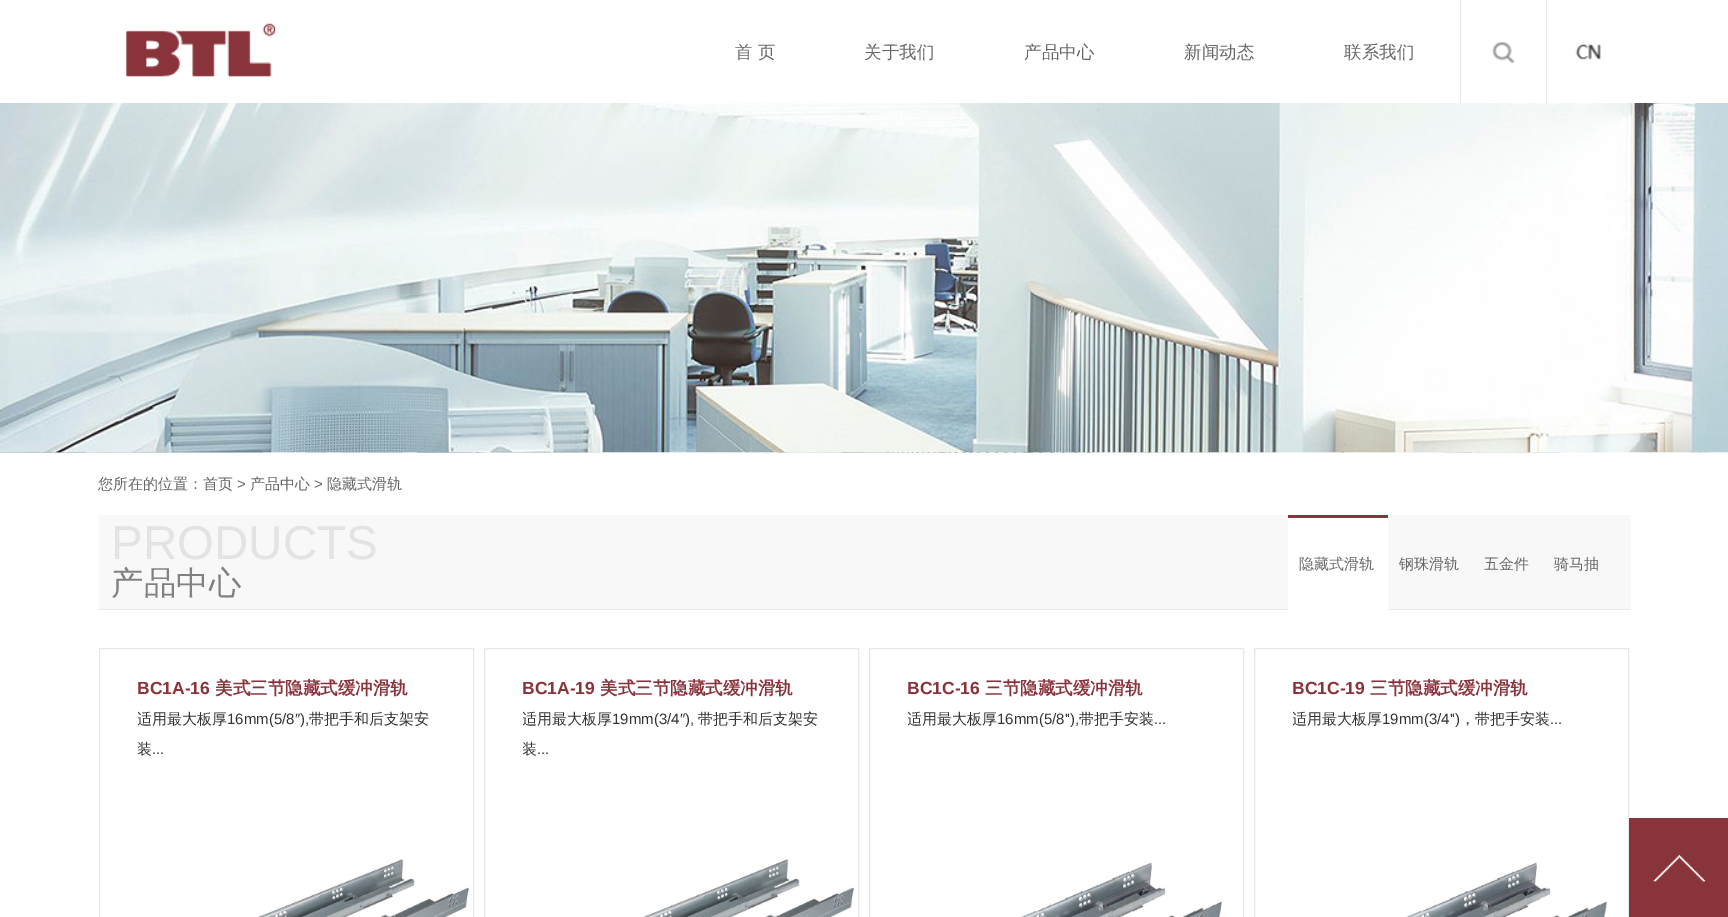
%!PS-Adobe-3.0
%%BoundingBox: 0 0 1728 917
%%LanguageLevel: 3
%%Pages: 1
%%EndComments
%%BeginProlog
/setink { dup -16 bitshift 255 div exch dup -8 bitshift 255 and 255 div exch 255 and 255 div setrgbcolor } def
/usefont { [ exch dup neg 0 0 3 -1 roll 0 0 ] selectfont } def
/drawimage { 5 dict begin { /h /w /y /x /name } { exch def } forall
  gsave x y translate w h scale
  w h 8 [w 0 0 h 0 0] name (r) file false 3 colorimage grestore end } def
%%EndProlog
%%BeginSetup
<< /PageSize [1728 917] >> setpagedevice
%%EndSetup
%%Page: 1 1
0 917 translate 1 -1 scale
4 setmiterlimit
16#FFFFFF setink
0 0 1728 917 rectfill
(img1.raw) 126 23 150 54 drawimage
/WenQuanYiZenHei-Medium 17.5 usefont
16#666666 setink
[
    [(首 页) 735 58]
    [(关于我们) 864 58]
    [(产品中心) 1024 58]
    [(新闻动态) 1184 58]
    [(联系我们) 1344 58]
] { aload pop moveto show } forall
16#E8E8E8 setink
1460 0 1 103 rectfill
(img2.raw) 1492 42 23 22 drawimage
1546 0 1 103 rectfill
(img3.raw) 1575 44 26 16 drawimage
(img4.raw) 0 452 1728 1 drawimage
(img5.raw) 0 103 1728 350 drawimage
/WenQuanYiZenHei-Medium 15 usefont
16#666666 setink
98 489 moveto (您所在的位置：首页) show
/LiberationSans-Regular 15 usefont
237 489 moveto (>) show
/WenQuanYiZenHei-Medium 15 usefont
250 489 moveto (产品中心) show
/LiberationSans-Regular 15 usefont
314 489 moveto (>) show
/WenQuanYiZenHei-Medium 15 usefont
327 489 moveto (隐藏式滑轨) show
16#F8F8F8 setink
99 515 1532 94 rectfill
16#E8E8E8 setink
99 609 1532 1 rectfill
/LiberationSans-Regular 47.5 usefont
16#E3E3E3 setink
111 559 moveto (PRODUCTS) show
/WenQuanYiZenHei-Medium 32.5 usefont
16#818181 setink
111 594 moveto (产品中心) show
16#FFFFFF setink
1288 518 100 92 rectfill
16#89333B setink
1288 515 100 3 rectfill
/WenQuanYiZenHei-Medium 15 usefont
16#666666 setink
[
    [(隐藏式滑轨) 1299 569]
    [(钢珠滑轨) 1399 569]
    [(五金件) 1484 569]
    [(骑马抽) 1554 569]
] { aload pop moveto show } forall
16#E8E8E8 setink
99.5 648.5 374 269 rectstroke
/LiberationSans-Bold 17.5 usefont
16#89333B setink
137 694 moveto (BC1A-16) show
/WenQuanYiZenHei-Bold 17.5 usefont
215 694 moveto (美式三节隐藏式缓冲滑轨) show
gsave
138 704 297 120 rectclip
/WenQuanYiZenHei-Medium 15 usefont
16#333333 setink
137 724 moveto (适用最大板厚) show
grestore
/LiberationSans-Regular 15 usefont
16#333333 setink
227 724 moveto (16mm\(5/8″\),) show
/WenQuanYiZenHei-Medium 15 usefont
309 724 moveto (带把手和后支架安) show
gsave
138 704 297 120 rectclip
137 754 moveto (装) show
grestore
/LiberationSans-Regular 15 usefont
152 754 moveto (...) show
(img6.raw) 258 859 212 58 drawimage
16#E8E8E8 setink
484.5 648.5 374 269 rectstroke
/LiberationSans-Bold 17.5 usefont
16#89333B setink
522 694 moveto (BC1A-19) show
/WenQuanYiZenHei-Bold 17.5 usefont
600 694 moveto (美式三节隐藏式缓冲滑轨) show
gsave
523 704 297 120 rectclip
/WenQuanYiZenHei-Medium 15 usefont
16#333333 setink
522 724 moveto (适用最大板厚) show
grestore
/LiberationSans-Regular 15 usefont
16#333333 setink
612 724 moveto (19mm\(3/4″\),) show
/WenQuanYiZenHei-Medium 15 usefont
698 724 moveto (带把手和后支架安) show
gsave
523 704 297 120 rectclip
522 754 moveto (装) show
grestore
/LiberationSans-Regular 15 usefont
537 754 moveto (...) show
(img6.raw) 643 859 212 58 drawimage
16#E8E8E8 setink
869.5 648.5 374 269 rectstroke
/LiberationSans-Bold 17.5 usefont
16#89333B setink
907 694 moveto (BC1C-16) show
/WenQuanYiZenHei-Bold 17.5 usefont
985 694 moveto (三节隐藏式缓冲滑轨) show
gsave
908 704 297 120 rectclip
/WenQuanYiZenHei-Medium 15 usefont
16#333333 setink
907 724 moveto (适用最大板厚) show
grestore
/LiberationSans-Regular 15 usefont
16#333333 setink
997 724 moveto (16mm\(5/8''\),) show
/WenQuanYiZenHei-Medium 15 usefont
1079 724 moveto (带把手安装) show
/LiberationSans-Regular 15 usefont
1154 724 moveto (...) show
(img7.raw) 1021 862 202 55 drawimage
16#E8E8E8 setink
1254.5 648.5 374 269 rectstroke
/LiberationSans-Bold 17.5 usefont
16#89333B setink
1292 694 moveto (BC1C-19) show
/WenQuanYiZenHei-Bold 17.5 usefont
1370 694 moveto (三节隐藏式缓冲滑轨) show
gsave
1293 704 297 120 rectclip
/WenQuanYiZenHei-Medium 15 usefont
16#333333 setink
1292 724 moveto (适用最大板厚) show
grestore
/LiberationSans-Regular 15 usefont
16#333333 setink
1382 724 moveto (19mm\(3/4''\)) show
/WenQuanYiZenHei-Medium 15 usefont
1460 724 moveto (，带把手安装) show
/LiberationSans-Regular 15 usefont
1550 724 moveto (...) show
(img7.raw) 1406 862 202 55 drawimage
16#89333B setink
1629 818 99 99 rectfill
(img8.raw) 1653 854 53 28 drawimage
showpage
%%EOF
